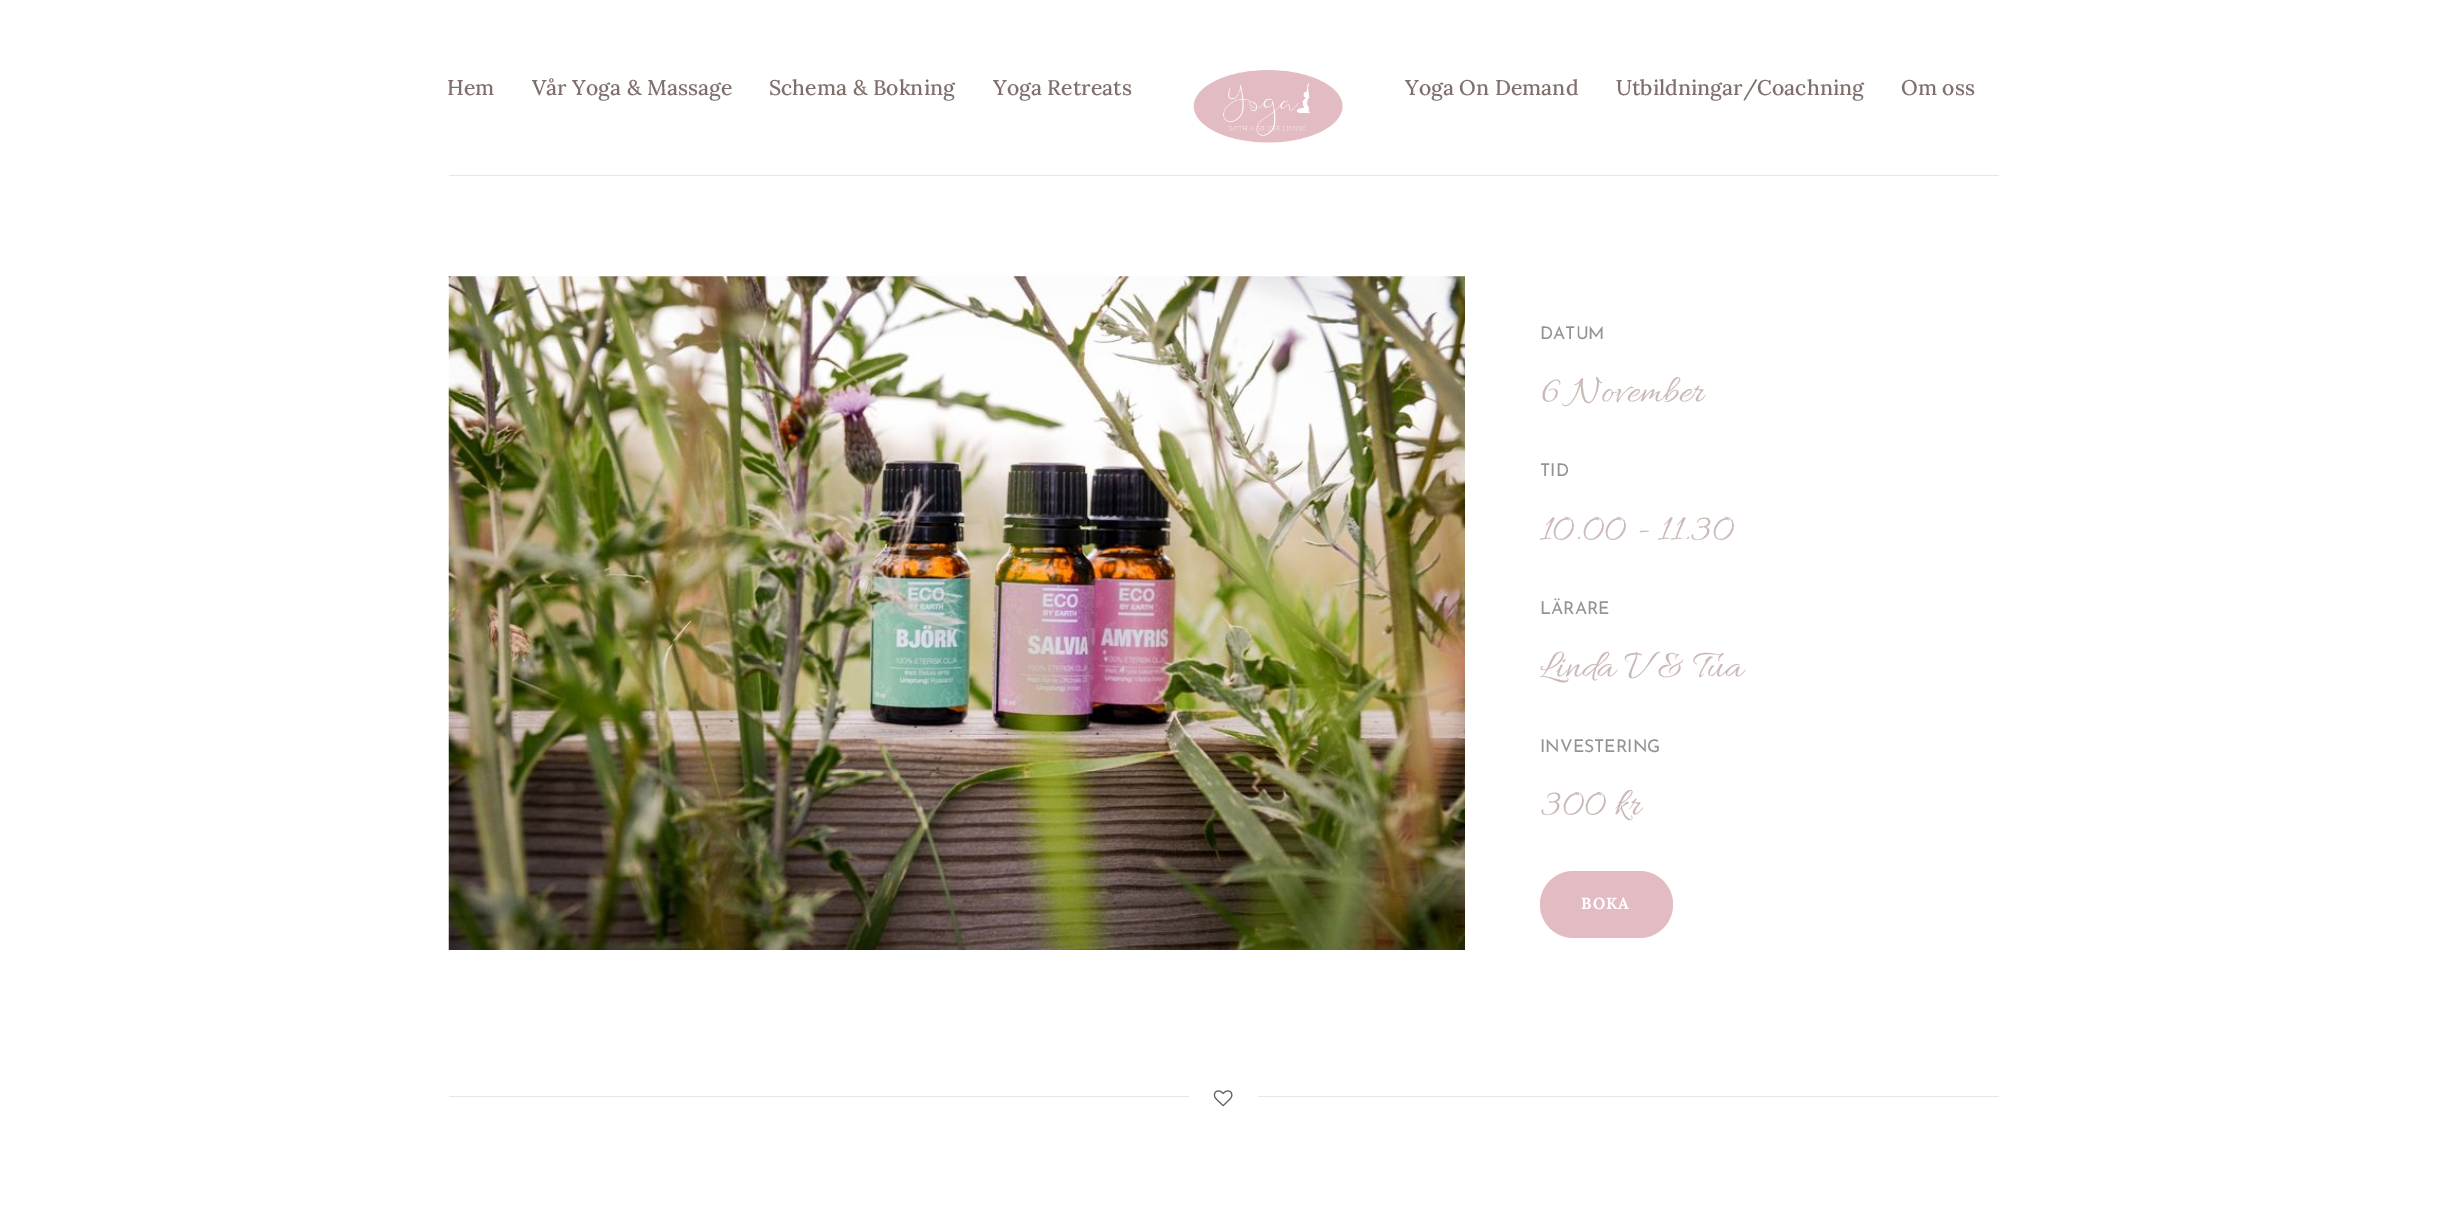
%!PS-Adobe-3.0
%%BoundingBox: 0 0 2446 1223
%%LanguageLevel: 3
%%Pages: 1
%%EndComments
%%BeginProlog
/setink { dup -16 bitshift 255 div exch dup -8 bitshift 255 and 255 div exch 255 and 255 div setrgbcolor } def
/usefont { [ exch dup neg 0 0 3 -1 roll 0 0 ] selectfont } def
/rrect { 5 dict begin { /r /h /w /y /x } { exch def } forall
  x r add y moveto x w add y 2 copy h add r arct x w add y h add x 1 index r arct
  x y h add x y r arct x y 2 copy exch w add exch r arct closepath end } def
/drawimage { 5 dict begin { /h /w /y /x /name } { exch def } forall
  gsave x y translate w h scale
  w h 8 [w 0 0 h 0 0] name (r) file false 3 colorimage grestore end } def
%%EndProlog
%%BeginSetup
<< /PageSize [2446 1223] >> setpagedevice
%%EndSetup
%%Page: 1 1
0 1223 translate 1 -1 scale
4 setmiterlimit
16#FFFFFF setink
0 0 2446 1223 rectfill
/Lora-Medium 21.25 usefont
16#7F706E setink
[
    [(Hem) 447 95]
    [(Vår Yoga & Massage) 532 95]
    [(Schema & Bokning) 769 95]
    [(Yoga Retreats) 993 95]
] { aload pop moveto show } forall
(img1.raw) 1193 70 150 73 drawimage
[
    [(Yoga On Demand) 1405 95]
    [(Utbildningar/Coachning) 1616 95]
    [(Om oss) 1901 95]
] { aload pop moveto show } forall
16#E6E6E6 setink
449 175 1550 1 rectfill
(img2.raw) 448 276 1017 674 drawimage
/JosefinSans-Regular 17.5 usefont
16#939393 setink
1540 339 moveto (DATUM) show
/Allura-Regular 40 usefont
16#CBB9B7 setink
1540 401 moveto (6 November) show
/JosefinSans-Regular 17.5 usefont
16#939393 setink
1540 476 moveto (TID) show
/Allura-Regular 40 usefont
16#CBB9B7 setink
1540 539 moveto (10.00 - 11.30) show
/JosefinSans-Regular 17.5 usefont
16#939393 setink
1540 614 moveto (LÄRARE) show
/Allura-Regular 40 usefont
16#CBB9B7 setink
1540 676 moveto (Linda V & Tua) show
/JosefinSans-Regular 17.5 usefont
16#939393 setink
1540 752 moveto (INVESTERING) show
/Allura-Regular 40 usefont
16#CBB9B7 setink
1540 814 moveto (300 kr) show
16#E3BBC2 setink
1540 871 133 67 33.5 rrect fill
/Lora-Bold 16 usefont
16#FFFFFF setink
1581 909 moveto 1 0 (BOKA) ashow
16#E6E6E6 setink
449 1096 740 1 rectfill
(img3.raw) 1213 1090 20 17 drawimage
1258 1096 741 1 rectfill
showpage
%%EOF
